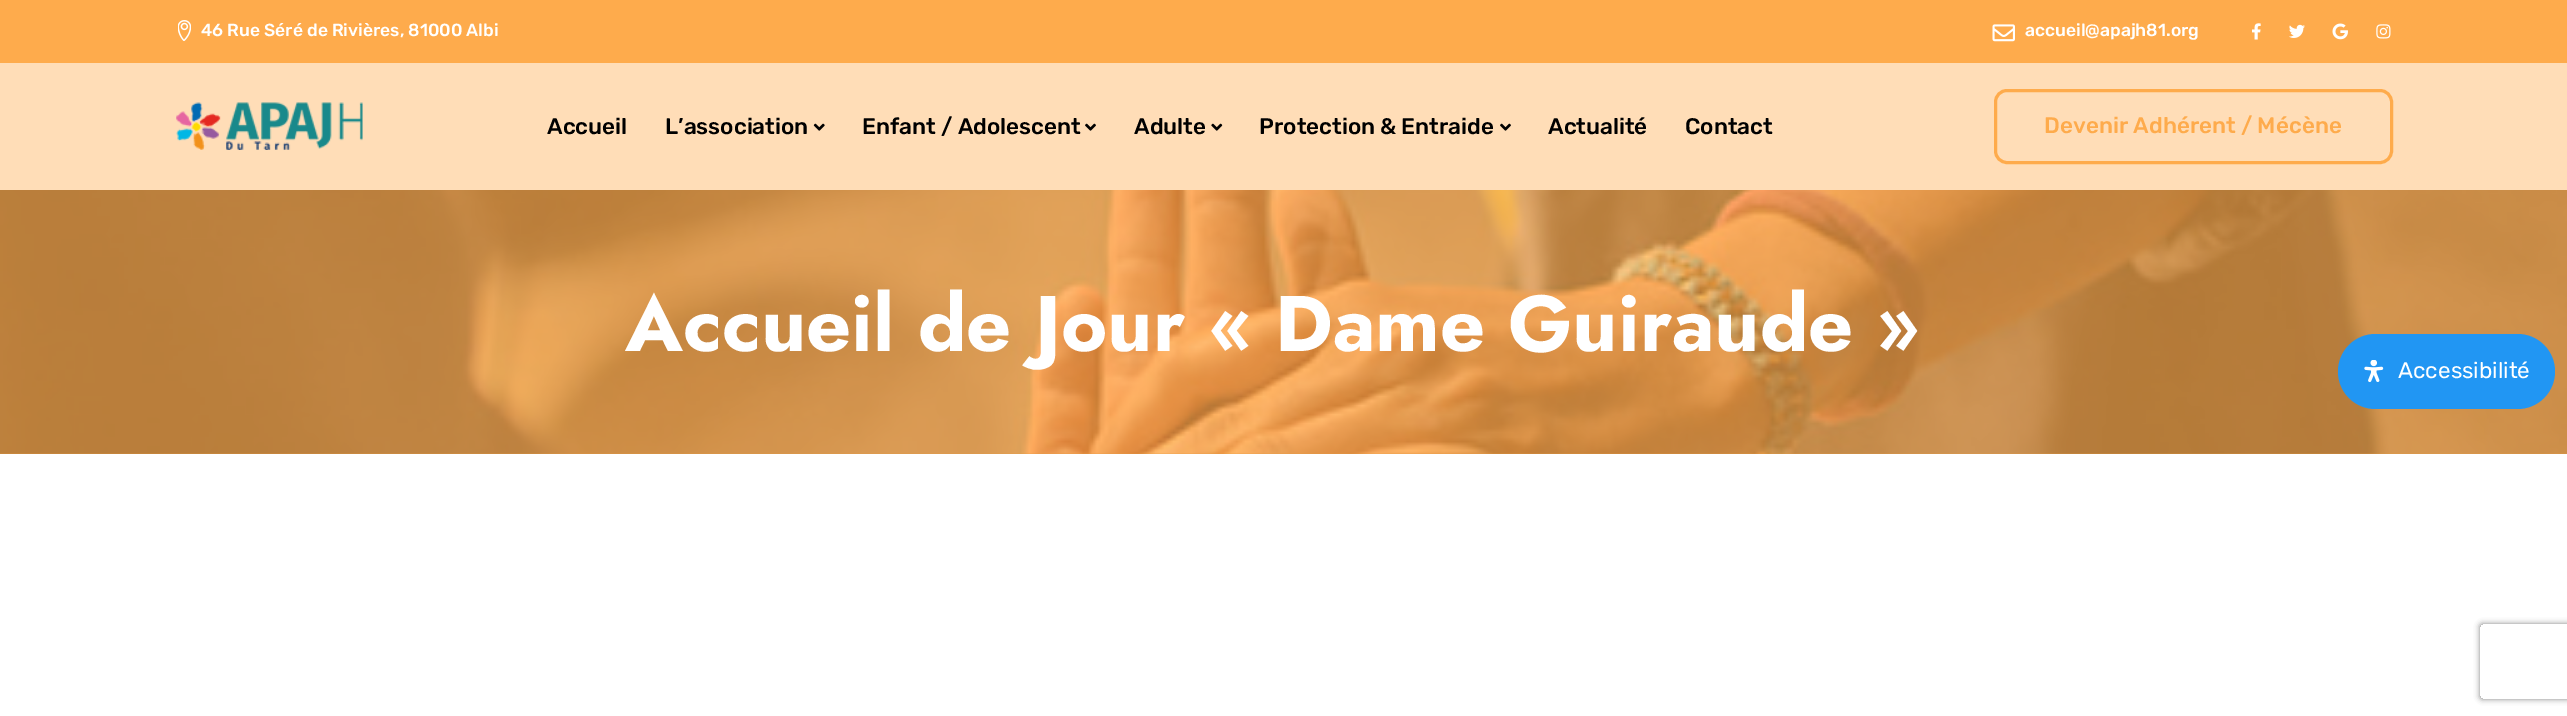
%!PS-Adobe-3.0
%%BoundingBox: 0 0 2567 716
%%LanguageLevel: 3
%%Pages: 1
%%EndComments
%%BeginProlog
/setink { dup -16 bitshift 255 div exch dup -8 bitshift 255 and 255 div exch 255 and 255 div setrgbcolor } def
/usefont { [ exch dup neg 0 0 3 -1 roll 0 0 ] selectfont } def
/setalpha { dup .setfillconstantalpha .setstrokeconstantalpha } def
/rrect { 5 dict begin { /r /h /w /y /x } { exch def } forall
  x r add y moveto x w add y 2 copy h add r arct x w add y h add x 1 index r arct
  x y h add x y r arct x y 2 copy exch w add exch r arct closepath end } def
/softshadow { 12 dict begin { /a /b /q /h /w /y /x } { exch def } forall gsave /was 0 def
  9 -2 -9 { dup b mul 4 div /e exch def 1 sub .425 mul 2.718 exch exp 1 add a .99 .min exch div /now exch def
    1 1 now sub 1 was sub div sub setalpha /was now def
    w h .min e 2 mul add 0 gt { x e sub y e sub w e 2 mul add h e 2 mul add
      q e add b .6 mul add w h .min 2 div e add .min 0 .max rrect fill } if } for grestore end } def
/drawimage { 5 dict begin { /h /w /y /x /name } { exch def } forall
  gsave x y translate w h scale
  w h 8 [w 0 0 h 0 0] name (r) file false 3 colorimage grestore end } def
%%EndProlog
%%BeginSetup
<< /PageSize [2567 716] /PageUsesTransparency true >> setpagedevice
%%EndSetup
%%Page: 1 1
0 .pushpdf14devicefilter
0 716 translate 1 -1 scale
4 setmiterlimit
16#FFFFFF setink
0 0 2567 716 rectfill
16#FEAB4C setink
0 0 2567 63 rectfill
(img1.raw) 178 20 13 21 drawimage
/Rubik-Medium 17.5 usefont
16#FFFFFF setink
201 36 moveto (46 Rue Séré de Rivières, 81000 Albi) show
(img2.raw) 1992 24 23 18 drawimage
2025 36 moveto (accueil@apajh81.org) show
(img3.raw) 2252 23 9 17 drawimage
(img4.raw) 2289 24 16 14 drawimage
(img5.raw) 2332 23 16 17 drawimage
(img6.raw) 2376 24 15 15 drawimage
16#FFDDB7 setink
0 63 2567 127 rectfill
(img7.raw) 176 102 187 48 drawimage
/Rubik-Medium 22.5 usefont
16#000000 setink
547 134 moveto (Accueil) show
665 134 moveto (L’association) show
(img8.raw) 813 123 12 8 drawimage
862 134 moveto (Enfant / Adolescent) show
(img9.raw) 1085 123 11 8 drawimage
1134 134 moveto (Adulte) show
(img10.raw) 1211 123 12 8 drawimage
1259 134 moveto (Protection & Entraide) show
(img9.raw) 1500 123 11 8 drawimage
1548 134 moveto (Actualité) show
1685 134 moveto (Contact) show
16#FEAB4C setink
3 setlinewidth
1995.5 90.5 396 72 11.5 rrect stroke
2044 133 moveto (Devenir Adhérent / Mécène) show
(img11.raw) 0 190 2567 264 drawimage
/Jost-Bold 78.75 usefont
16#FFFFFF setink
625 351 moveto (Accueil de Jour « Dame Guiraude ») show
16#2196F3 setink
2338 334 217 75 37.5 rrect fill
(img12.raw) 2364 360 20 23 drawimage
/Rubik-Regular 22.5 usefont
16#FFFFFF setink
2398 378 moveto (Accessibilité) show
gsave
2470 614 moveto 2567 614 lineto 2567 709 lineto 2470 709 lineto closepath 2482.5 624 moveto 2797.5 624 lineto 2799 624 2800 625 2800 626.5 curveto 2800 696.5 lineto 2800 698 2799 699 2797.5 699 curveto 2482.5 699 lineto 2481 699 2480 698 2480 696.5 curveto 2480 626.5 lineto 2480 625 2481 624 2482.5 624 curveto closepath eoclip newpath
16#808080 setink
2480 624 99 75 2.5 3 1 softshadow
grestore
.poppdf14devicefilter showpage
%%EOF
